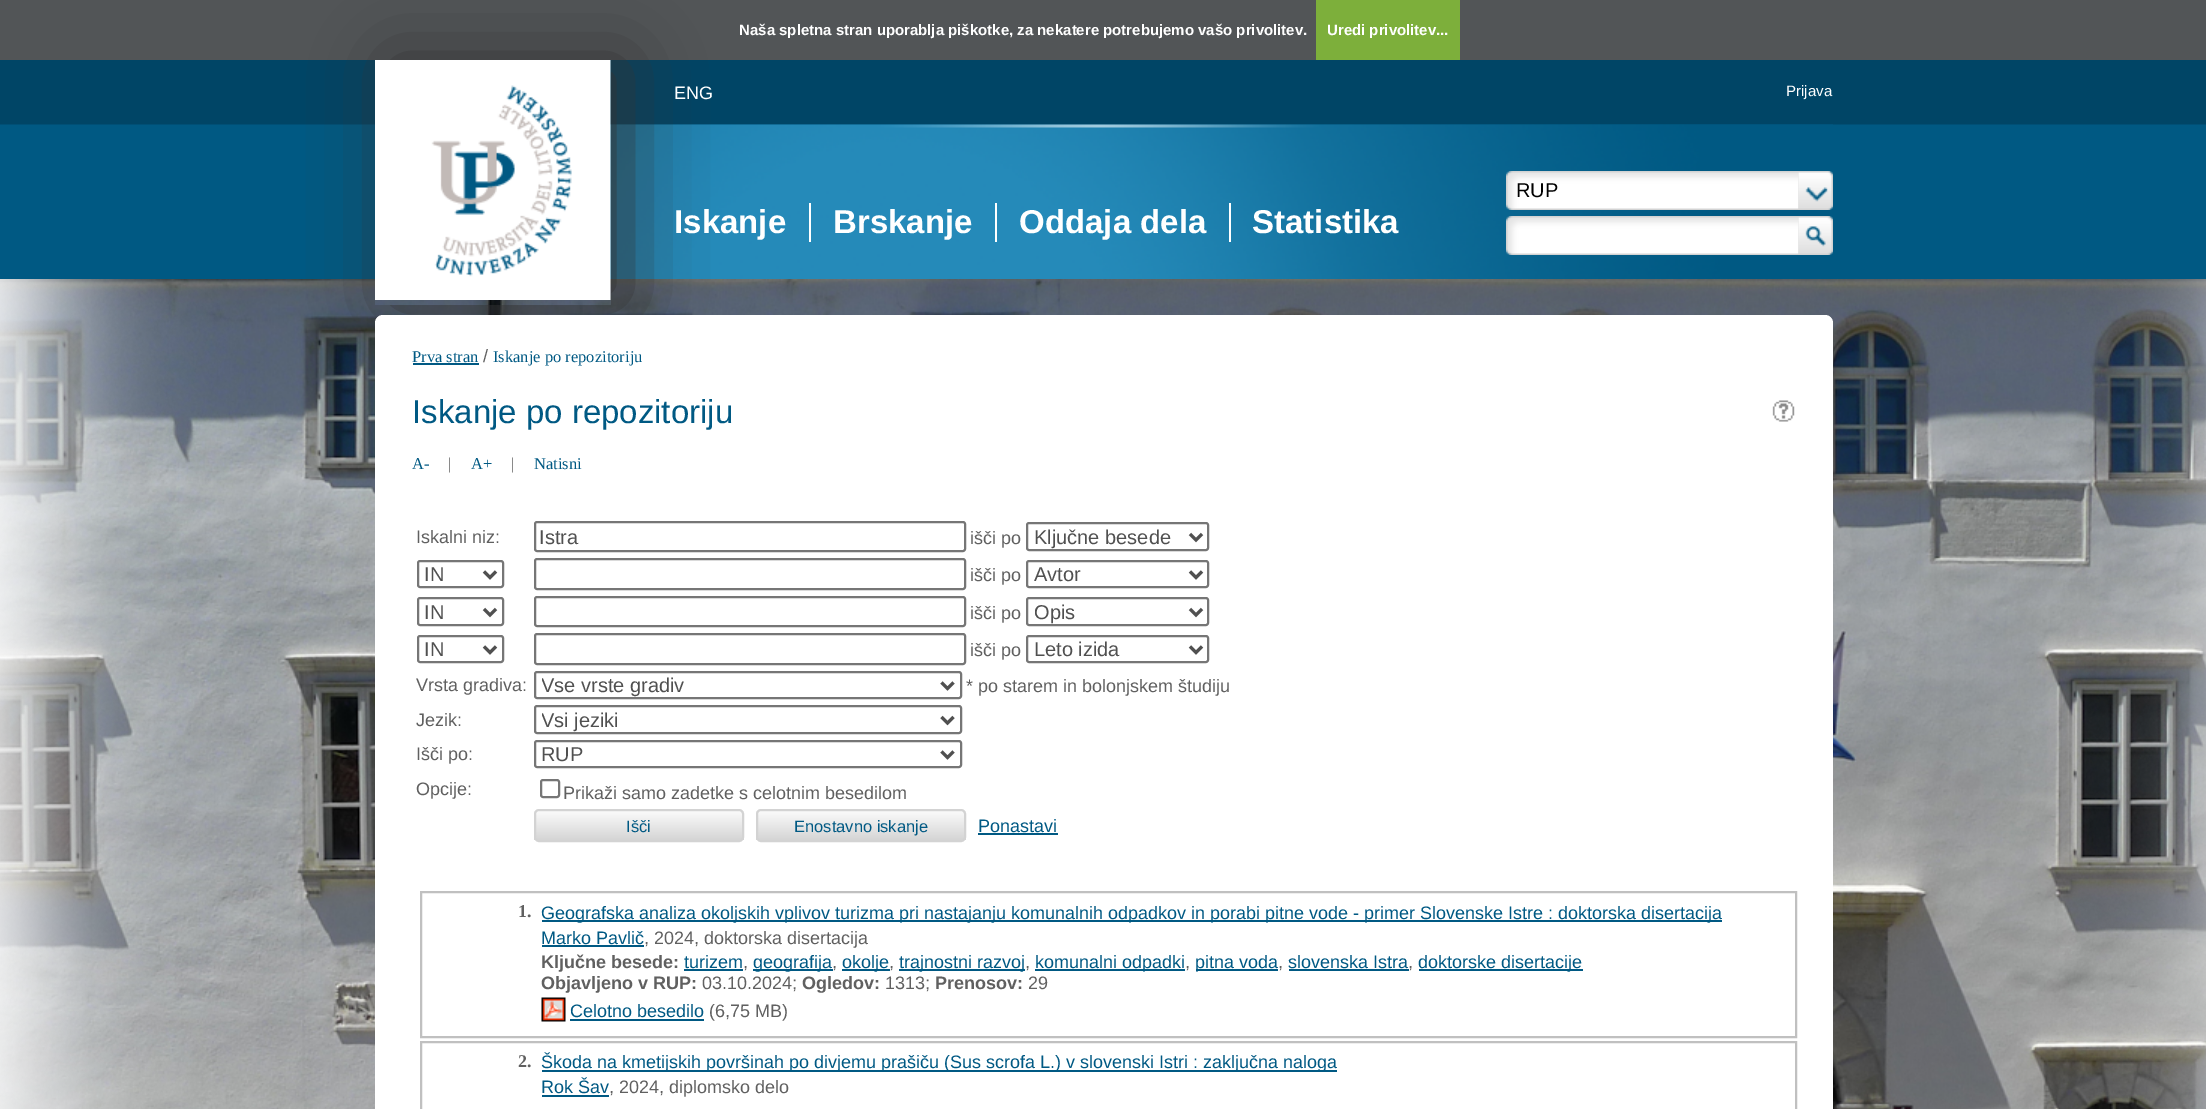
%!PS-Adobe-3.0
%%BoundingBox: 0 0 2206 1109
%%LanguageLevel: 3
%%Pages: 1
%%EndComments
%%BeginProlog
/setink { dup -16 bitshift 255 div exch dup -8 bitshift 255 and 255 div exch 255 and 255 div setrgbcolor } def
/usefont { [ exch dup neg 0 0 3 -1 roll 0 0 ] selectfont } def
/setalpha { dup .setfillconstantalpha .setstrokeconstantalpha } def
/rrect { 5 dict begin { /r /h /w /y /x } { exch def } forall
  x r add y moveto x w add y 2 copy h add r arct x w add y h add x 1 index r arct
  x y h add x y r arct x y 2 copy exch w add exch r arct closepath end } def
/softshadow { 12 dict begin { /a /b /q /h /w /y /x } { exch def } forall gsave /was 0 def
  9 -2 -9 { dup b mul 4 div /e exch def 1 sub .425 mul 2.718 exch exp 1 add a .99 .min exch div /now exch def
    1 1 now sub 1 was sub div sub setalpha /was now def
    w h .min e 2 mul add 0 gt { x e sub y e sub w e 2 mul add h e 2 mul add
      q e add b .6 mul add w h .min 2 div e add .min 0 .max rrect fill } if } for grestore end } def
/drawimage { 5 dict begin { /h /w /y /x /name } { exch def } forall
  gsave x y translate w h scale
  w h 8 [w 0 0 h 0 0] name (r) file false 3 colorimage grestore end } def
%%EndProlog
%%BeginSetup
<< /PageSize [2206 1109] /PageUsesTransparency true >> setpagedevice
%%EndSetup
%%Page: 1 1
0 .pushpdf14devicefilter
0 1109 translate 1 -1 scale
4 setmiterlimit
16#525557 setink
0 0 2206 1109 rectfill
/LiberationSans-Bold 15 usefont
16#FFFFFF setink
739 35 moveto (Naša spletna stran uporablja piškotke, za nekatere potrebujemo vašo privolitev.) show
16#7DAF3B setink
1316 0 144 60 rectfill
16#FFFFFF setink
1327 35 moveto (Uredi privolitev...) show
0 279 2206 830 rectfill
(img1.raw) 0 60 2206 219 drawimage
(img2.raw) 0 279 2206 830 drawimage
(img3.raw) 610 124 1223 155 drawimage
gsave
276 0 moveto 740 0 lineto 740 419 lineto 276 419 lineto closepath 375 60 moveto 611 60 lineto 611 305 lineto 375 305 lineto closepath eoclip newpath
16#333333 setink
390 60 236 245 0 37.5 1 softshadow
grestore
(img4.raw) 375 60 236 240 drawimage
/LiberationSans-Regular 15 usefont
1786 96 moveto (Prijava) show
/LiberationSans-Regular 18 usefont
674 99 moveto (ENG) show
(img5.raw) 1506 171 293 39 drawimage
(img6.raw) 1798 171 35 39 drawimage
/LiberationSans-Regular 20 usefont
16#000000 setink
1516 197 moveto (RUP) show
(img7.raw) 1506 216 293 39 drawimage
(img8.raw) 1798 216 35 39 drawimage
/LiberationSans-Bold 33 usefont
16#FFFFFF setink
674 233 moveto (Iskanje) show
809 203 2 39 rectfill
833 233 moveto (Brskanje) show
995 203 2 39 rectfill
1019 233 moveto (Oddaja dela) show
1229 203 2 39 rectfill
1252 233 moveto (Statistika) show
375 315 1458 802 8 rrect fill
/LiberationSerif-Regular 16.5 usefont
16#005983 setink
412 362 moveto (Prva stran) show
413 363 66 2 rectfill
/LiberationSans-Regular 18 usefont
16#606060 setink
483 362 moveto (/) show
/LiberationSerif-Regular 16.5 usefont
16#005983 setink
493 362 moveto (Iskanje po repozitoriju) show
/LiberationSans-Regular 33 usefont
412 423 moveto (Iskanje po repozitoriju) show
(img9.raw) 1772 400 23 22 drawimage
/LiberationSerif-Regular 16.5 usefont
412 469 moveto (A-) show
16#606060 setink
448 469 moveto (|) show
16#005983 setink
471 469 moveto (A+) show
16#606060 setink
511 469 moveto (|) show
16#005983 setink
534 469 moveto (Natisni) show
/LiberationSans-Regular 18 usefont
16#606060 setink
416 543 moveto (Iskalni niz:) show
16#767676 setink
2 setlinewidth
535 522 430 29 2 rrect stroke
/LiberationSans-Regular 20 usefont
16#505050 setink
539 544 moveto (Istra) show
/LiberationSans-Regular 18 usefont
16#606060 setink
970 544 moveto (išči po) show
16#767676 setink
1027 523 181 27 2 rrect stroke
16#505050 setink
3 setlinewidth
1190 534 moveto 1196 540 lineto 1202 534 lineto stroke
/LiberationSans-Regular 20 usefont
1034 544 moveto (Ključne besede) show
16#767676 setink
2 setlinewidth
418 561 85 26 2 rrect stroke
16#505050 setink
3 setlinewidth
484 571.5 moveto 490 577.5 lineto 496 571.5 lineto stroke
424 581 moveto (IN) show
16#767676 setink
2 setlinewidth
535 559 430 30 2 rrect stroke
/LiberationSans-Regular 18 usefont
16#606060 setink
970 581 moveto (išči po) show
16#767676 setink
1027 561 181 26 2 rrect stroke
16#505050 setink
3 setlinewidth
1190 571.5 moveto 1196 577.5 lineto 1202 571.5 lineto stroke
/LiberationSans-Regular 20 usefont
1034 581 moveto (Avtor) show
16#767676 setink
2 setlinewidth
418 598 85 27 2 rrect stroke
16#505050 setink
3 setlinewidth
484 609 moveto 490 615 lineto 496 609 lineto stroke
424 619 moveto (IN) show
16#767676 setink
2 setlinewidth
535 597 430 29 2 rrect stroke
/LiberationSans-Regular 18 usefont
16#606060 setink
970 619 moveto (išči po) show
16#767676 setink
1027 598 181 27 2 rrect stroke
16#505050 setink
3 setlinewidth
1190 609 moveto 1196 615 lineto 1202 609 lineto stroke
/LiberationSans-Regular 20 usefont
1034 619 moveto (Opis) show
16#767676 setink
2 setlinewidth
418 636 85 26 2 rrect stroke
16#505050 setink
3 setlinewidth
484 646.5 moveto 490 652.5 lineto 496 646.5 lineto stroke
424 656 moveto (IN) show
16#767676 setink
2 setlinewidth
535 634 430 30 2 rrect stroke
/LiberationSans-Regular 18 usefont
16#606060 setink
970 656 moveto (išči po) show
16#767676 setink
1027 636 181 26 2 rrect stroke
16#505050 setink
3 setlinewidth
1190 646.5 moveto 1196 652.5 lineto 1202 646.5 lineto stroke
/LiberationSans-Regular 20 usefont
1034 656 moveto (Leto izida) show
/LiberationSans-Regular 18 usefont
16#606060 setink
416 691 moveto (Vrsta gradiva:) show
16#767676 setink
2 setlinewidth
535 672 426 26 2 rrect stroke
16#505050 setink
3 setlinewidth
941.5 682.5 moveto 947.5 688.5 lineto 953.5 682.5 lineto stroke
gsave
542 672 394 26 rectclip
/LiberationSans-Regular 20 usefont
541 692 moveto (Vse vrste gradiv) show
grestore
16#606060 setink
966 692 moveto (* po starem in bolonjskem študiju) show
416 726 moveto (Jezik:) show
16#767676 setink
2 setlinewidth
535 706 426 27 2 rrect stroke
16#505050 setink
3 setlinewidth
941.5 717 moveto 947.5 723 lineto 953.5 717 lineto stroke
gsave
542 707 394 25 rectclip
/LiberationSans-Regular 20 usefont
541 727 moveto (Vsi jeziki) show
grestore
16#606060 setink
416 760 moveto (Išči po:) show
16#767676 setink
2 setlinewidth
535 741 426 26 2 rrect stroke
16#505050 setink
3 setlinewidth
941.5 751.5 moveto 947.5 757.5 lineto 953.5 751.5 lineto stroke
/LiberationSans-Regular 20 usefont
541 761 moveto (RUP) show
/LiberationSans-Regular 18 usefont
16#606060 setink
416 795 moveto (Opcije:) show
16#767676 setink
2 setlinewidth
541 780 18 17 2 rrect stroke
16#606060 setink
563 799 moveto (Prikaži samo zadetke s celotnim besedilom) show
gsave
534 809 210 33 5 rrect clip newpath
gsave 534 810 moveto 744 810 lineto 744 840 lineto 534 840 lineto closepath clip newpath
<< /ShadingType 2 /ColorSpace /DeviceRGB /Coords [639 810 639 840] /Extend [true true] /Function << /FunctionType 2 /Domain [0 1] /C0 [0.988 0.988 0.988] /C1 [0.835 0.835 0.835] /N 1 >> >> shfill grestore
grestore
16#D3D3D3 setink
535 810 208 31 4 rrect stroke
/LiberationSans-Regular 16.5 usefont
16#005983 setink
626 832 moveto (Išči) show
gsave
756 809 210 33 5 rrect clip newpath
gsave 756 810 moveto 966 810 lineto 966 840 lineto 756 840 lineto closepath clip newpath
<< /ShadingType 2 /ColorSpace /DeviceRGB /Coords [861 810 861 840] /Extend [true true] /Function << /FunctionType 2 /Domain [0 1] /C0 [0.988 0.988 0.988] /C1 [0.835 0.835 0.835] /N 1 >> >> shfill grestore
grestore
16#D3D3D3 setink
757 810 208 31 4 rrect stroke
16#005983 setink
794 832 moveto (Enostavno iskanje) show
/LiberationSans-Regular 18 usefont
978 832 moveto (Ponastavi) show
978 833 80 2 rectfill
16#C0C0C0 setink
421 892 1375 145 rectstroke
/LiberationSerif-Bold 18 usefont
16#606060 setink
518 917 moveto (1.) show
16#005983 setink
542 920 1180 2 rectfill
/LiberationSans-Regular 18 usefont
541 919 moveto (Geografska analiza okoljskih vplivov turizma pri nastajanju komunalnih odpadkov in porabi pitne vode - primer Slovenske Istre : doktorska disertacija) show
541 944 moveto (Marko Pavlič) show
542 945 102 2 rectfill
16#606060 setink
644 944 moveto (, 2024, doktorska disertacija) show
/LiberationSans-Bold 18 usefont
541 968 moveto (Ključne besede:) show
/LiberationSans-Regular 18 usefont
16#005983 setink
684 968 moveto (turizem) show
684 969 59 2 rectfill
16#606060 setink
743 968 moveto (,) show
16#005983 setink
753 969 80 2 rectfill
753 968 moveto (geografija) show
16#606060 setink
832 968 moveto (,) show
16#005983 setink
842 969 48 2 rectfill
842 968 moveto (okolje) show
16#606060 setink
889 968 moveto (,) show
16#005983 setink
899 969 126 2 rectfill
899 968 moveto (trajnostni razvoj) show
16#606060 setink
1025 968 moveto (,) show
16#005983 setink
1035 969 150 2 rectfill
1035 968 moveto (komunalni odpadki) show
16#606060 setink
1185 968 moveto (,) show
16#005983 setink
1196 969 82 2 rectfill
1195 968 moveto (pitna voda) show
16#606060 setink
1278 968 moveto (,) show
16#005983 setink
1288 968 moveto (slovenska Istra) show
1289 969 120 2 rectfill
16#606060 setink
1408 968 moveto (,) show
16#005983 setink
1419 969 164 2 rectfill
1418 968 moveto (doktorske disertacije) show
/LiberationSans-Bold 18 usefont
16#606060 setink
541 989 moveto (Objavljeno v RUP:) show
/LiberationSans-Regular 18 usefont
702 989 moveto (03.10.2024;) show
/LiberationSans-Bold 18 usefont
802 989 moveto (Ogledov:) show
/LiberationSans-Regular 18 usefont
885 989 moveto (1313;) show
/LiberationSans-Bold 18 usefont
935 989 moveto (Prenosov:) show
/LiberationSans-Regular 18 usefont
1028 989 moveto (29) show
(img10.raw) 541 997 25 25 drawimage
16#005983 setink
570 1017 moveto (Celotno besedilo) show
570 1019 134 2 rectfill
16#606060 setink
709 1017 moveto (\(6,75 MB\)) show
16#C0C0C0 setink
421 1042 1375 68 rectstroke
/LiberationSerif-Bold 18 usefont
16#606060 setink
518 1067 moveto (2.) show
16#005983 setink
542 1070 795 2 rectfill
/LiberationSans-Regular 18 usefont
541 1068 moveto (Škoda na kmetijskih površinah po divjemu prašiču \(Sus scrofa L.\) v slovenski Istri : zaključna naloga) show
541 1093 moveto (Rok Šav) show
542 1095 67 2 rectfill
16#606060 setink
609 1093 moveto (, 2024, diplomsko delo) show
.poppdf14devicefilter showpage
%%EOF
